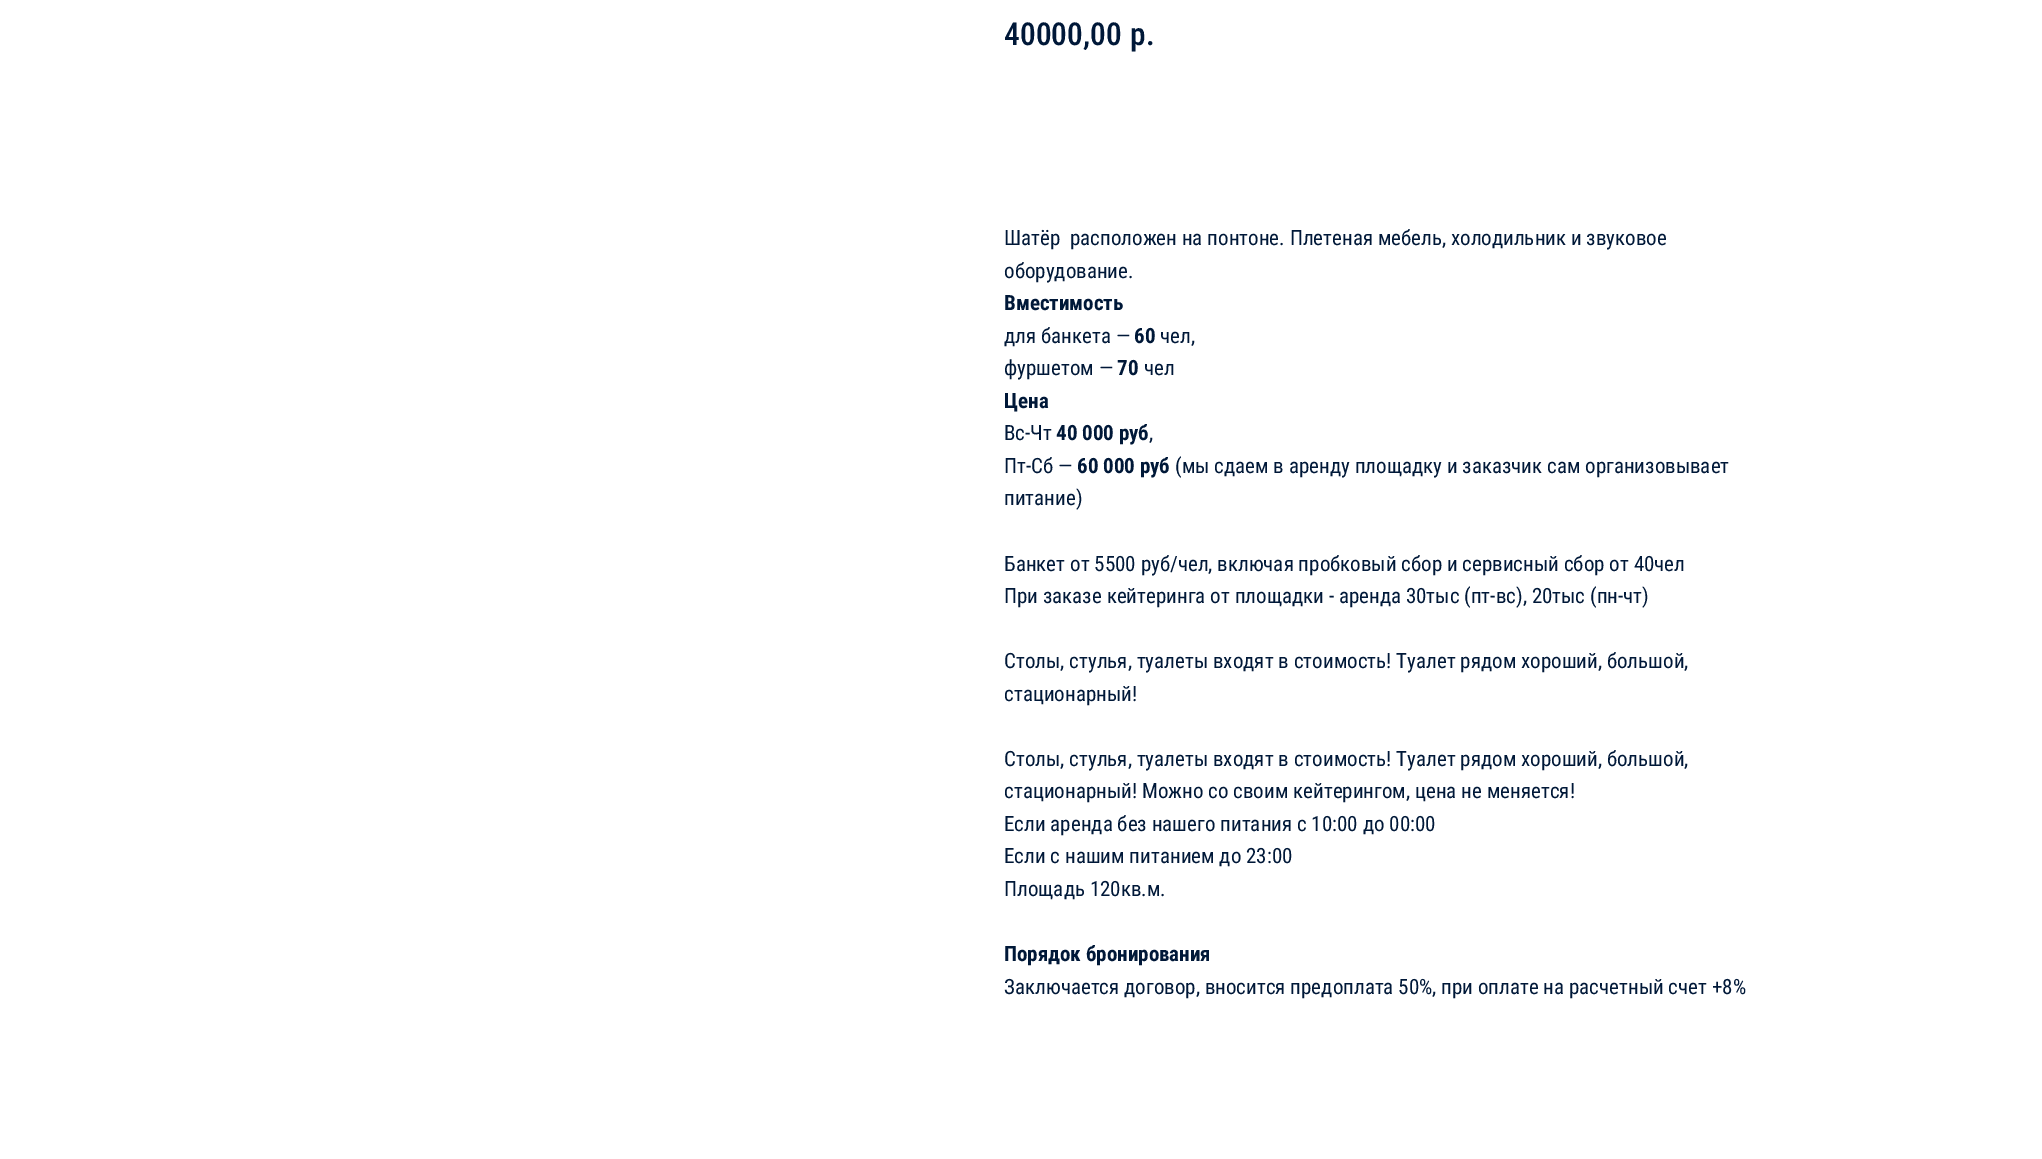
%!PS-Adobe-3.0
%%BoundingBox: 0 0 2042 1159
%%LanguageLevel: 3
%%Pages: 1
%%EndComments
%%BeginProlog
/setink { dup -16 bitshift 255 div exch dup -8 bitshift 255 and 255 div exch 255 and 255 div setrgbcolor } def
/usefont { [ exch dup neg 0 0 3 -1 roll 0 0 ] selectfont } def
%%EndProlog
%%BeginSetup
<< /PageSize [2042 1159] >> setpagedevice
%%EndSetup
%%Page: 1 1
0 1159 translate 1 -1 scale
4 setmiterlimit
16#FFFFFF setink
0 0 2042 1159 rectfill
/RobotoCondensed-Medium 31.5 usefont
16#001838 setink
1004 45 moveto (40000,00) show
1130 45 moveto (р.) show
/RobotoCondensed-Regular 21 usefont
1004 245 moveto (Шатёр  расположен на понтоне. Плетеная мебель, холодильник и звуковое) show
1004 278 moveto (оборудование.) show
/RobotoCondensed-Bold 21 usefont
1004 310 moveto (Вместимость) show
/RobotoCondensed-Regular 21 usefont
1004 343 moveto (для банкета —) show
/RobotoCondensed-Bold 21 usefont
1134 343 moveto (60) show
/RobotoCondensed-Regular 21 usefont
1160 343 moveto (чел,) show
1004 375 moveto (фуршетом —) show
/RobotoCondensed-Bold 21 usefont
1117 375 moveto (70) show
/RobotoCondensed-Regular 21 usefont
1144 375 moveto (чел) show
/RobotoCondensed-Bold 21 usefont
1004 408 moveto (Цена) show
/RobotoCondensed-Regular 21 usefont
1004 440 moveto (Вс-Чт) show
/RobotoCondensed-Bold 21 usefont
1056 440 moveto (40 000 руб) show
/RobotoCondensed-Regular 21 usefont
1149 440 moveto (,) show
1004 473 moveto (Пт-Сб —) show
/RobotoCondensed-Bold 21 usefont
1077 473 moveto (60 000 руб) show
/RobotoCondensed-Regular 21 usefont
[
    [(\(мы сдаем в аренду площадку и заказчик сам организовывает) 1175 473]
    [(питание\)) 1004 505]
    [(Банкет от 5500 руб/чел, включая пробковый сбор и сервисный сбор от 40чел) 1004 571]
    [(При заказе кейтеринга от площадки - аренда 30тыс \(пт-вс\), 20тыс \(пн-чт\)) 1004 603]
    [(Столы, стулья, туалеты входят в стоимость! Туалет рядом хороший, большой,) 1004 668]
    [(стационарный!) 1004 701]
    [(Столы, стулья, туалеты входят в стоимость! Туалет рядом хороший, большой,) 1004 766]
    [(стационарный! Можно со своим кейтерингом, цена не меняется!) 1004 798]
    [(Если аренда без нашего питания с 10:00 до 00:00) 1004 831]
    [(Если с нашим питанием до 23:00) 1004 863]
    [(Площадь 120кв.м.) 1004 896]
] { aload pop moveto show } forall
/RobotoCondensed-Bold 21 usefont
1004 961 moveto (Порядок бронирования) show
/RobotoCondensed-Regular 21 usefont
1004 994 moveto (Заключается договор, вносится предоплата 50%, при оплате на расчетный счет +8%) show
showpage
%%EOF
